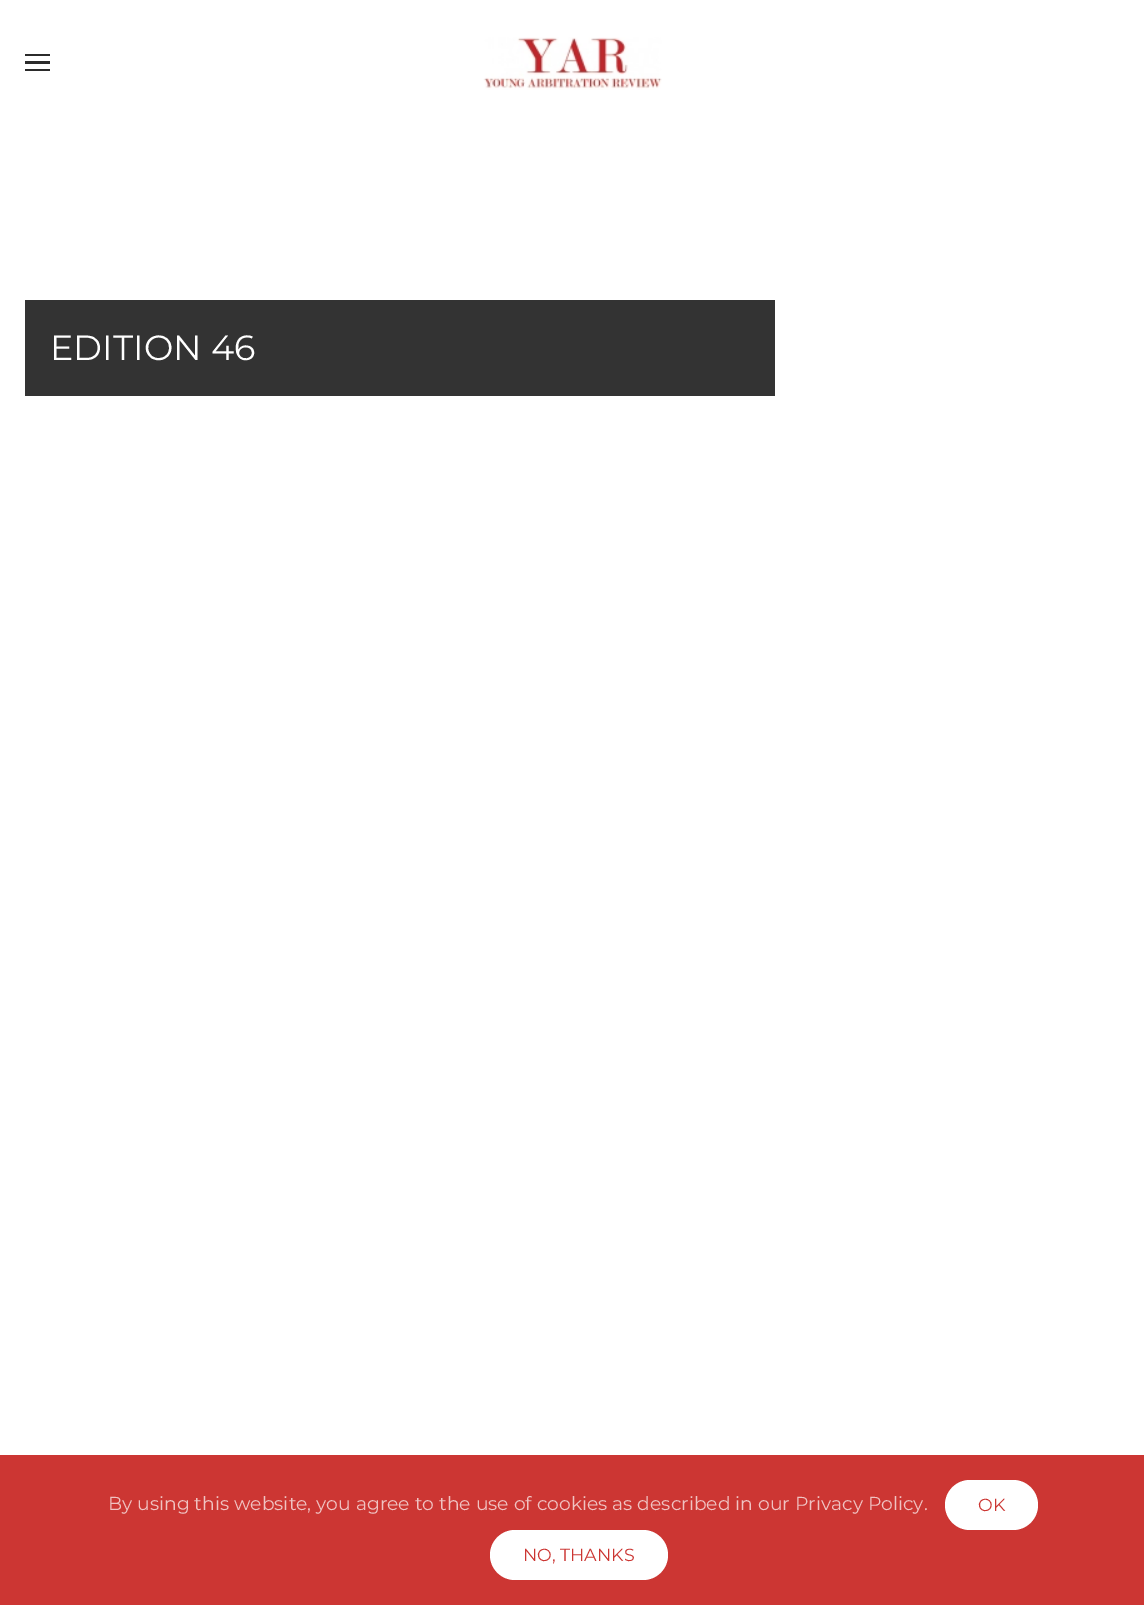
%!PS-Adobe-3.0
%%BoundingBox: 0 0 1144 1605
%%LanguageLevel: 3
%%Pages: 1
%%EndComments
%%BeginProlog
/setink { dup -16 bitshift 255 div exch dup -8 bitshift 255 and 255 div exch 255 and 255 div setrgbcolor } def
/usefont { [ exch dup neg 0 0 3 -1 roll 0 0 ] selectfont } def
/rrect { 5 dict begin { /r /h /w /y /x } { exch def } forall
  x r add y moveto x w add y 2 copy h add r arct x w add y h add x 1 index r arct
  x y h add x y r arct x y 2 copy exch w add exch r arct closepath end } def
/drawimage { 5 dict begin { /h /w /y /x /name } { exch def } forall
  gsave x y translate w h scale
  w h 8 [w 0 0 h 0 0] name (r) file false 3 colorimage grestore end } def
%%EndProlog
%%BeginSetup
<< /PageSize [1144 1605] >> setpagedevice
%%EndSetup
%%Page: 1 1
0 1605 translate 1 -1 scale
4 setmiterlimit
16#FFFFFF setink
0 0 1144 1605 rectfill
[
    [25 54 25 2 16#2B2B2B]
    [25 61 25 3 16#2B2B2B]
    [25 69 25 2 16#2B2B2B]
] { aload pop setink rectfill } forall
(img1.raw) 483 37 179 53 drawimage
16#333333 setink
25 300 750 96 rectfill
/Montserrat-Thin 35 usefont
16#FFFFFF setink
50 360 moveto (EDITION 46) show
16#CC3633 setink
0 1455 1144 150 rectfill
/Montserrat-Thin 18.75 usefont
16#F0C3C2 setink
108 1510 moveto (By using this website, you agree to the use of cookies as described in our Privacy Policy.) show
16#FFFFFF setink
945 1480 93 50 25 rrect fill
/Montserrat-Thin 17.5 usefont
16#CC3633 setink
978 1511 moveto (OK) show
16#FFFFFF setink
490 1530 178 50 25 rrect fill
16#CC3633 setink
523 1561 moveto (NO, THANKS) show
showpage
%%EOF
